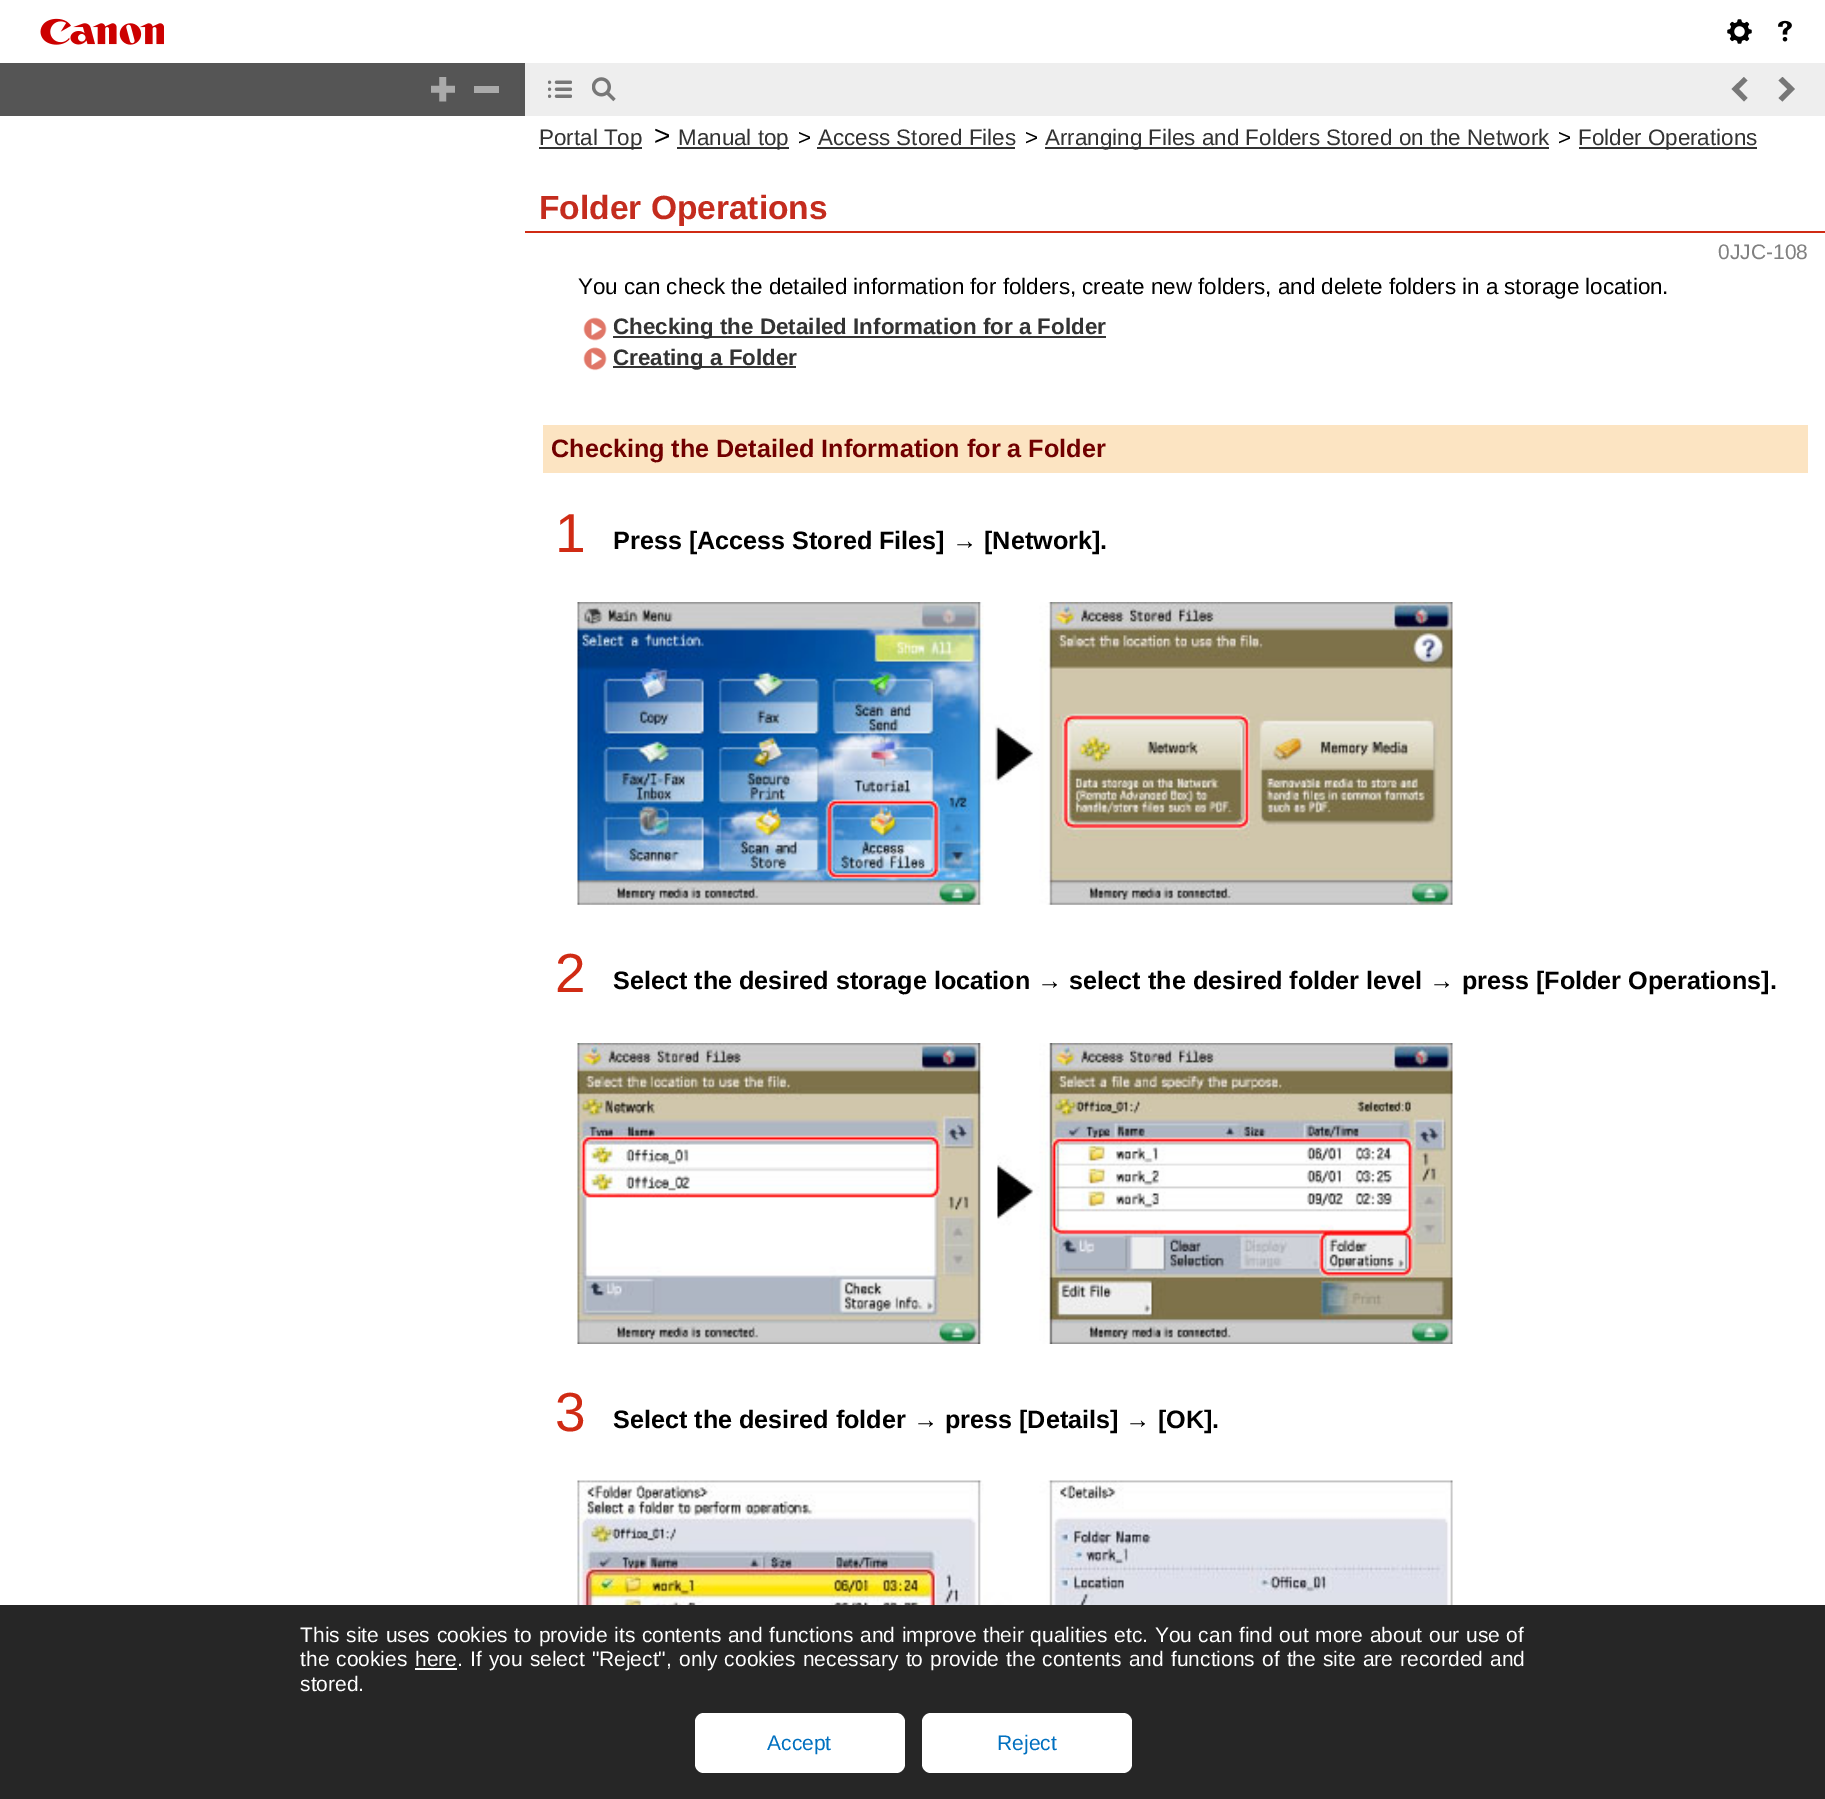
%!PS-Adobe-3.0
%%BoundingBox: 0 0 1825 1799
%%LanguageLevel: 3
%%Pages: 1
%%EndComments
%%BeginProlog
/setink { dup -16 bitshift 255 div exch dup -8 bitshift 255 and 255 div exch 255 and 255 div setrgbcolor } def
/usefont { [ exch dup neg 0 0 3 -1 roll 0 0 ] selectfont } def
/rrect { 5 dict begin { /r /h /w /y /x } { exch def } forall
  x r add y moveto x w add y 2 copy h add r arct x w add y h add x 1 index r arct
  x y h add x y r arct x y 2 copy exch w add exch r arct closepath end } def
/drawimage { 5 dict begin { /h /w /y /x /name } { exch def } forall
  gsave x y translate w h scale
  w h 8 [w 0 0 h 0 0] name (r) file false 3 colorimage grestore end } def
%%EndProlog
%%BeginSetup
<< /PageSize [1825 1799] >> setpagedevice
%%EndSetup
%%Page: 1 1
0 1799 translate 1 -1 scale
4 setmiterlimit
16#FFFFFF setink
0 0 1825 1799 rectfill
(img1.raw) 40 18 124 27 drawimage
(img2.raw) 1727 19 25 25 drawimage
(img3.raw) 1778 20 14 22 drawimage
16#555555 setink
0 63 525 53 rectfill
(img4.raw) 431 77 24 25 drawimage
16#AAAAAA setink
474 86 25 7 rectfill
16#EEEEEE setink
525 63 1300 53 rectfill
(img5.raw) 548 80 24 18 drawimage
(img6.raw) 592 77 24 25 drawimage
16#777777 setink
1747.5 98 moveto 1739 89 lineto 1747.5 80.5 lineto 1744 77 lineto 1731.5 89 lineto 1744 101.5 lineto closepath fill
1778.5 80.5 moveto 1787.5 89 lineto 1778.5 98 lineto 1782.5 101.5 lineto 1795 89 lineto 1782.5 77 lineto closepath fill
16#333333 setink
539 147 103 2 rectfill
/LiberationSans-Regular 22.4 usefont
539 145 moveto (Portal Top) show
/LiberationSans-Regular 28 usefont
16#000000 setink
654 145 moveto (>) show
16#333333 setink
677 147 112 2 rectfill
/LiberationSans-Regular 22.4 usefont
678 145 moveto (Manual top) show
16#000000 setink
798 145 moveto (>) show
16#333333 setink
818 145 moveto (Access Stored Files) show
817 147 198 2 rectfill
16#000000 setink
1025 145 moveto (>) show
16#333333 setink
1045 147 504 2 rectfill
1045 145 moveto (Arranging Files and Folders Stored on the Network) show
16#000000 setink
1558 145 moveto (>) show
16#333333 setink
1579 147 178 2 rectfill
1578 145 moveto (Folder Operations) show
16#D02B14 setink
525 231 1300 2 rectfill
/LiberationSans-Bold 33.5 usefont
16#C42C1E setink
539 219 moveto (Folder Operations) show
/LiberationSans-Regular 21 usefont
16#808080 setink
1718 259 moveto (0JJC-108) show
/LiberationSans-Regular 22.4 usefont
16#000000 setink
578 294 moveto (You can check the detailed information for folders, create new folders, and delete folders in a storage location.) show
(img7.raw) 583 317 24 24 drawimage
16#353535 setink
613 336 493 2 rectfill
/LiberationSans-Bold 22.4 usefont
16#333333 setink
613 334 moveto (Checking the Detailed Information for a Folder) show
(img8.raw) 583 347 24 24 drawimage
16#353535 setink
613 366 183 2 rectfill
16#333333 setink
613 365 moveto (Creating a Folder) show
16#FCE4C2 setink
543 425 1265 48 rectfill
/LiberationSans-Bold 25.2 usefont
16#710000 setink
551 457 moveto (Checking the Detailed Information for a Folder) show
/LiberationSans-Regular 55 usefont
16#D02B14 setink
555 552 moveto (1) show
/LiberationSans-Bold 25.2 usefont
16#000000 setink
613 549 moveto (Press [Access Stored Files] → [Network].) show
(img9.raw) 577 602 876 303 drawimage
/LiberationSans-Regular 55 usefont
16#D02B14 setink
555 992 moveto (2) show
/LiberationSans-Bold 25.2 usefont
16#000000 setink
613 989 moveto (Select the desired storage location → select the desired folder level → press [Folder Operations].) show
(img10.raw) 577 1043 876 301 drawimage
/LiberationSans-Regular 55 usefont
16#D02B14 setink
555 1431 moveto (3) show
/LiberationSans-Bold 25.2 usefont
16#000000 setink
613 1428 moveto (Select the desired folder → press [Details] → [OK].) show
(img11.raw) 577 1480 876 125 drawimage
16#262626 setink
0 1605 1825 194 rectfill
/LiberationSans-Regular 21 usefont
16#FFFFFF setink
300 1642 moveto 0.8 0 32 (This site uses cookies to provide its contents and functions and improve their qualities etc. You can find out more about our use of) widthshow
300 1666 moveto 1 0 32 (the cookies) widthshow
415 1666 moveto (here) show
415 1668 42 2 rectfill
457 1666 moveto 1.25 0 32 (. If you select "Reject", only cookies necessary to provide the contents and functions of the site are recorded and) widthshow
300 1691 moveto (stored.) show
695 1713 210 60 9 rrect fill
16#0070C0 setink
767 1750 moveto (Accept) show
16#FFFFFF setink
922 1713 210 60 9 rrect fill
16#0070C0 setink
997 1750 moveto (Reject) show
showpage
%%EOF
